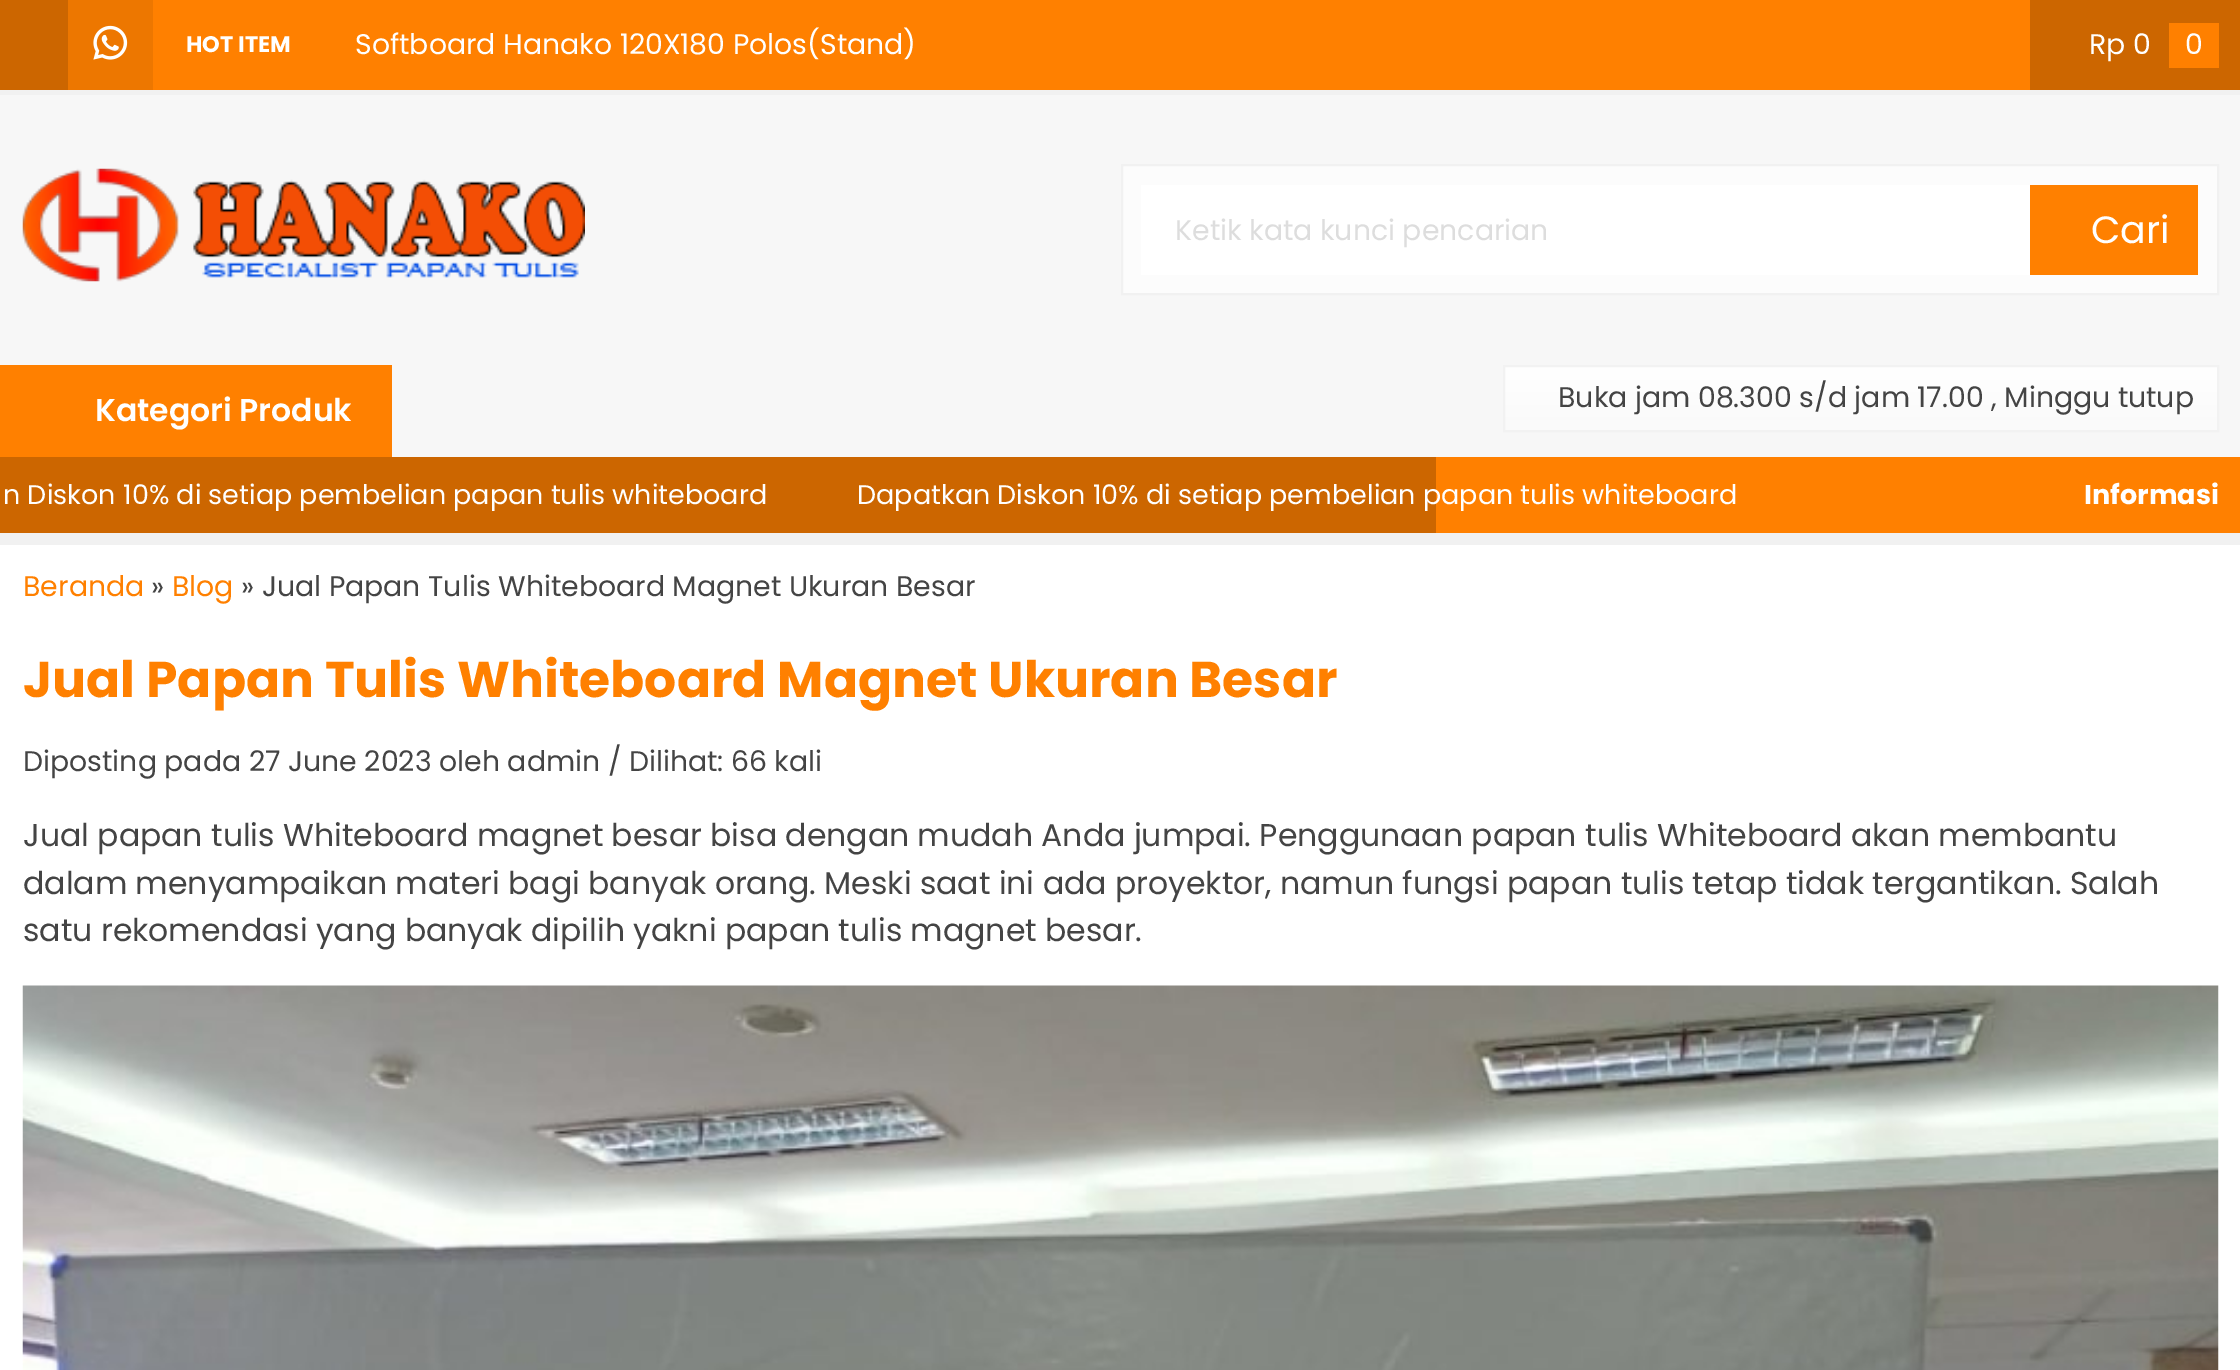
%!PS-Adobe-3.0
%%BoundingBox: 0 0 2240 1370
%%LanguageLevel: 3
%%Pages: 1
%%EndComments
%%BeginProlog
/setink { dup -16 bitshift 255 div exch dup -8 bitshift 255 and 255 div exch 255 and 255 div setrgbcolor } def
/usefont { [ exch dup neg 0 0 3 -1 roll 0 0 ] selectfont } def
/drawimage { 5 dict begin { /h /w /y /x /name } { exch def } forall
  gsave x y translate w h scale
  w h 8 [w 0 0 h 0 0] name (r) file false 3 colorimage grestore end } def
%%EndProlog
%%BeginSetup
<< /PageSize [2240 1370] >> setpagedevice
%%EndSetup
%%Page: 1 1
0 1370 translate 1 -1 scale
4 setmiterlimit
16#F1F1F1 setink
0 0 2240 1370 rectfill
[
    [153 0 1877 90 16#FF8000]
    [0 0 68 90 16#CC6600]
    [68 0 85 90 16#ED7700]
] { aload pop setink rectfill } forall
(img1.raw) 93 25 35 35 drawimage
/Poppins-Bold 22.5 usefont
16#FFFFFF setink
186 52 moveto (HOT ITEM) show
/Poppins-Regular 28.35 usefont
355 54 moveto (Softboard Hanako 120X180 Polos\(Stand\)) show
16#CC6600 setink
2030 0 210 90 rectfill
16#FFFFFF setink
2089 54 moveto (Rp 0) show
16#FF8000 setink
2169 23 50 45 rectfill
16#FFFFFF setink
2185 54 moveto (0) show
16#F7F7F7 setink
0 95 2240 362 rectfill
(img2.raw) 22 168 563 114 drawimage
16#FCFCFC setink
1122 165 moveto 2218 165 lineto 2218 294 lineto 1122 294 lineto closepath gsave fill grestore
16#F1F1F1 setink
2 setlinewidth
stroke
16#FFFFFF setink
1141 185 889 90 rectfill
16#DDDDDD setink
1175 240 moveto (Ketik kata kunci pencarian) show
16#FF8000 setink
2030 185 168 90 rectfill
/Poppins-Regular 38 usefont
16#FFFFFF setink
2091 243 moveto (Cari) show
16#FF8000 setink
0 365 392 92 rectfill
/Poppins-SemiBold 31.5 usefont
16#FFFFFF setink
95 421 moveto (Kategori Produk) show
gsave 1505 367 moveto 2217 367 lineto 2217 430 lineto 1505 430 lineto closepath clip newpath
<< /ShadingType 2 /ColorSpace /DeviceRGB /Coords [1861 430 1861 367] /Extend [true true] /Function << /FunctionType 2 /Domain [0 1] /C0 [0.98 0.98 0.98] /C1 [1 1 1] /N 1 >> >> shfill grestore
16#F2F2F2 setink
1504 366 714 65 rectstroke
/Poppins-Regular 28.35 usefont
16#444444 setink
1558 407 moveto (Buka jam 08.300 s/d jam 17.00 , Minggu tutup) show
16#FF8000 setink
1436 457 804 76 rectfill
16#CC6600 setink
0 457 1436 76 rectfill
/Poppins-Regular 27 usefont
16#FFFFFF setink
3 504 moveto (n Diskon 10% di setiap pembelian papan tulis whiteboard) show
857 504 moveto (Dapatkan Diskon 10% di setiap pembelian papan tulis whiteboard) show
/Poppins-Bold 27 usefont
2084 504 moveto (Informasi) show
0 545 2240 825 rectfill
/Poppins-Regular 28.35 usefont
16#FF8000 setink
23 596 moveto (Beranda) show
16#444444 setink
151 596 moveto (») show
16#FF8000 setink
172 596 moveto (Blog) show
16#444444 setink
241 596 moveto (» Jual Papan Tulis Whiteboard Magnet Ukuran Besar) show
/Poppins-Bold 50.4 usefont
16#FF8000 setink
23 697 moveto (Jual Papan Tulis Whiteboard Magnet Ukuran Besar) show
/Poppins-Regular 28.35 usefont
16#444444 setink
23 771 moveto (Diposting pada 27 June 2023 oleh admin / Dilihat: 66 kali) show
/Poppins-Regular 31.5 usefont
[
    [(Jual papan tulis Whiteboard magnet besar bisa dengan mudah Anda jumpai. Penggunaan papan tulis Whiteboard akan membantu) 23 846]
    [(dalam menyampaikan materi bagi banyak orang. Meski saat ini ada proyektor, namun fungsi papan tulis tetap tidak tergantikan. Salah) 23 894]
    [(satu rekomendasi yang banyak dipilih yakni papan tulis magnet besar.) 23 941]
] { aload pop moveto show } forall
(img3.raw) 22 985 2197 385 drawimage
showpage
%%EOF
